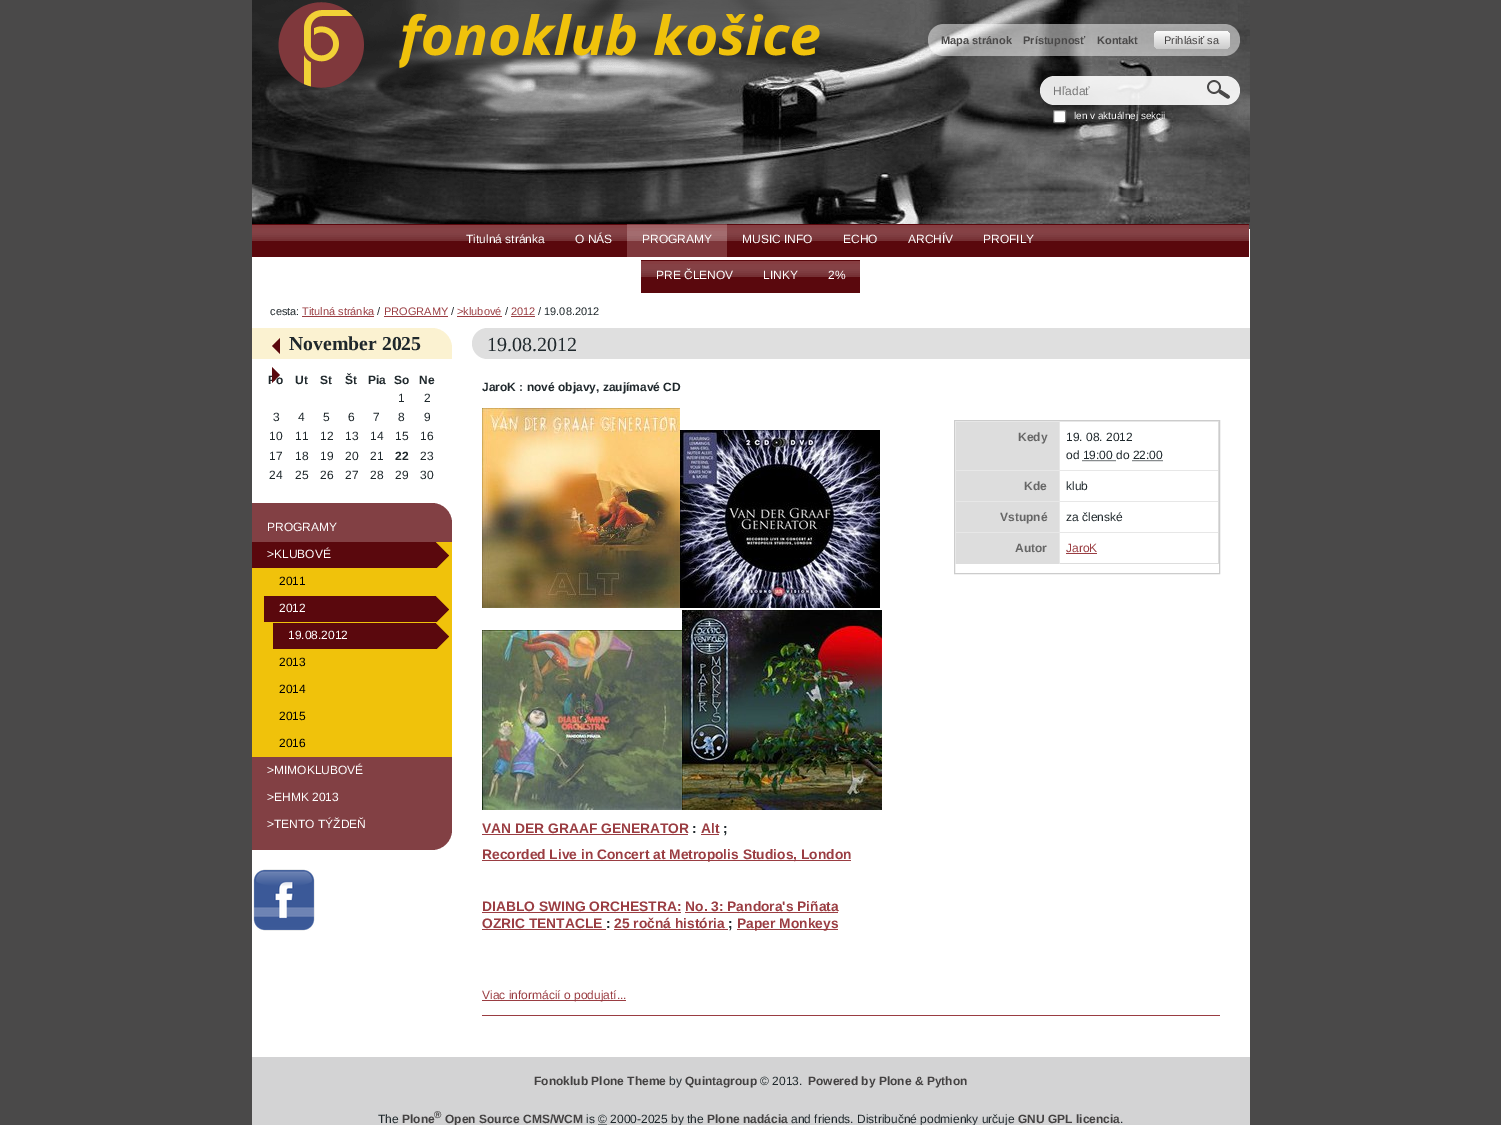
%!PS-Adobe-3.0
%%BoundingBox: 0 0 1501 1125
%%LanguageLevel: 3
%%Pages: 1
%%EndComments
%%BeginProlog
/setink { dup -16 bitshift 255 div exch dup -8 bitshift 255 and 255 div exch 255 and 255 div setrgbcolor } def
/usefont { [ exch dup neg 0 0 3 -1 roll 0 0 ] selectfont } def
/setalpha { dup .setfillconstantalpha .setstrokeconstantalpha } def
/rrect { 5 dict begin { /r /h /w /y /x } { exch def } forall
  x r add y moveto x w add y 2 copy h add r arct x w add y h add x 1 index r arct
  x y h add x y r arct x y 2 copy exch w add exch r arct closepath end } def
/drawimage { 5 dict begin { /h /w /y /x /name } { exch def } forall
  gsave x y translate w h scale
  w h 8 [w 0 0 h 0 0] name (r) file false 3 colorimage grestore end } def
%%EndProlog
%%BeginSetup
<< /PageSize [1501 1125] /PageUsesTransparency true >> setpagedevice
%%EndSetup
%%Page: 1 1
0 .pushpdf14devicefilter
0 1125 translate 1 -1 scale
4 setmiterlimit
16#4A4949 setink
0 0 1501 1125 rectfill
16#FFFFFF setink
252 229 998 828 rectfill
(img1.raw) 252 0 998 229 drawimage
(img2.raw) 278 2 542 86 drawimage
0.5 setalpha
944 24 moveto 1154 24 lineto 1154 56 lineto 944 56 lineto 935 56 928 49 928 40 curveto 928 31 935 24 944 24 curveto closepath fill
/LiberationSans-Bold 11 usefont
1 setalpha
16#4A4949 setink
[
    [(Mapa stránok) 941 44]
    [(Prístupnosť) 1023 44]
    [(Kontakt) 1097 44]
] { aload pop moveto show } forall
0.5 setalpha
16#FFFFFF setink
1154 24 moveto 1224 24 lineto 1233 24 1240 31 1240 40 curveto 1240 49 1233 56 1224 56 curveto 1154 56 lineto closepath fill
1 setalpha
gsave 1154 31 76 18 5 rrect clip newpath
<< /ShadingType 2 /ColorSpace /DeviceRGB /Coords [1192 31 1192 49] /Extend [true true] /Function << /FunctionType 2 /Domain [0 1] /C0 [0.984 0.984 0.984] /C1 [0.796 0.796 0.796] /N 1 >> >> shfill grestore
/LiberationSans-Regular 11 usefont
16#434141 setink
1164 44 moveto (Prihlásiť sa) show
0.9 setalpha
16#FFFFFF setink
1040 76 200 29 14.5 rrect fill
/LiberationSans-Regular 12 usefont
1 setalpha
16#757575 setink
1053 95 moveto (Hľadať) show
(img3.raw) 1207 80 23 19 drawimage
16#FFFFFF setink
1053.5 110.5 12 12 1.5 rrect gsave fill grestore
16#767676 setink
stroke
/LiberationSans-Regular 10 usefont
16#FFFFFF setink
1074 119 moveto (len v aktuálnej sekcii) show
(img4.raw) 252 224 997 33 drawimage
/LiberationSans-Regular 12 usefont
466 243 moveto (Titulná stránka) show
575 243 moveto (O NÁS) show
16#7F383C setink
627 224 100 33 rectfill
(img5.raw) 627 225 100 16 drawimage
16#FFFFFF setink
[
    [(PROGRAMY) 642 243]
    [(MUSIC INFO) 742 243]
    [(ECHO) 843 243]
    [(ARCHÍV) 908 243]
    [(PROFILY) 983 243]
] { aload pop moveto show } forall
(img6.raw) 641 260 107 33 drawimage
656 279 moveto (PRE ČLENOV) show
(img7.raw) 748 260 65 33 drawimage
763 279 moveto (LINKY) show
(img8.raw) 813 260 47 33 drawimage
828 279 moveto (2%) show
/LiberationSans-Regular 11 usefont
16#1F282C setink
270 315 moveto (cesta:) show
16#9A3D42 setink
302 315 moveto (Titulná stránka) show
302 316 72 1 rectfill
16#1F282C setink
377 315 moveto (/) show
16#9A3D42 setink
384 315 moveto (PROGRAMY) show
384 316 64 1 rectfill
16#1F282C setink
451 315 moveto (/) show
16#9A3D42 setink
457 315 moveto (>klubové) show
457 316 45 1 rectfill
16#1F282C setink
505 315 moveto (/) show
16#9A3D42 setink
511 315 moveto (2012) show
511 316 24 1 rectfill
16#1F282C setink
538 315 moveto (/ 19.08.2012) show
16#FBF2D1 setink
252 328 moveto 432 328 lineto 443 328 452 337 452 348 curveto 452 359 lineto 252 359 lineto closepath fill
/LiberationSans-Bold 12 usefont
16#1F282C setink
268 384 moveto (Po) show
16#5A080D setink
280 338 moveto 280 354 lineto 272 346 lineto closepath 272 383 moveto 272 367 lineto 280 375 lineto closepath fill
/LiberationSerif-Bold 19.75 usefont
16#1F282C setink
289 350 moveto (November 2025) show
/LiberationSans-Bold 12 usefont
[
    [(Ut) 295 384]
    [(St) 320 384]
    [(Št) 345 384]
    [(Pia) 368 384]
    [(So) 394 384]
    [(Ne) 419 384]
] { aload pop moveto show } forall
/LiberationSans-Regular 12 usefont
[
    [(1) 398 402]
    [(2) 424 402]
    [(3) 273 421]
    [(4) 298 421]
    [(5) 323 421]
    [(6) 348 421]
    [(7) 373 421]
    [(8) 398 421]
    [(9) 424 421]
    [(10) 269 440]
    [(11) 295 440]
    [(12) 320 440]
    [(13) 345 440]
    [(14) 370 440]
    [(15) 395 440]
    [(16) 420 440]
    [(17) 269 460]
    [(18) 295 460]
    [(19) 320 460]
    [(20) 345 460]
    [(21) 370 460]
] { aload pop moveto show } forall
/LiberationSans-Bold 12 usefont
395 460 moveto (22) show
/LiberationSans-Regular 12 usefont
[
    [(23) 420 460]
    [(24) 269 479]
    [(25) 295 479]
    [(26) 320 479]
    [(27) 345 479]
    [(28) 370 479]
    [(29) 395 479]
    [(30) 420 479]
] { aload pop moveto show } forall
16#824044 setink
252 503 moveto 432 503 lineto 443 503 452 512 452 523 curveto 452 830 lineto 452 841 443 850 432 850 curveto 252 850 lineto closepath fill
16#FFFFFF setink
267 531 moveto (PROGRAMY) show
16#F0C20B setink
252 542 200 215 rectfill
(img9.raw) 252 542 197 26 drawimage
16#FFFFFF setink
267 558 moveto (>KLUBOVÉ) show
16#000000 setink
279 585 moveto (2011) show
(img10.raw) 264 596 185 26 drawimage
16#FFFFFF setink
279 612 moveto (2012) show
(img11.raw) 273 623 176 26 drawimage
288 639 moveto (19.08.2012) show
16#000000 setink
[
    [(2013) 279 666]
    [(2014) 279 693]
    [(2015) 279 720]
    [(2016) 279 747]
] { aload pop moveto show } forall
16#FFFFFF setink
[
    [(>MIMOKLUBOVÉ) 267 774]
    [(>EHMK 2013) 267 801]
    [(>TENTO TÝŽDEŇ) 267 828]
] { aload pop moveto show } forall
(img12.raw) 253 869 62 62 drawimage
16#DFDFDF setink
487.5 328 moveto 1250 328 lineto 1250 359 lineto 487.5 359 lineto 479 359 472 352 472 343.5 curveto 472 335 479 328 487.5 328 curveto closepath fill
/LiberationSerif-Regular 20 usefont
16#1F282C setink
487 351 moveto (19.08.2012) show
/LiberationSans-Bold 12 usefont
482 391 moveto (JaroK : nové objavy, zaujímavé CD) show
16#CCCCCC setink
954.5 420.5 265 153 rectstroke
[
    [955 563 264 1 16#DDDDDD]
    [956 422 103 48 16#DDDDDD]
    [955 421 264 1 16#E7E7E7]
    [955 470 264 1 16#E7E7E7]
    [955 501 264 1 16#E7E7E7]
    [955 532 264 1 16#E7E7E7]
    [1059 532 1 32 16#E7E7E7]
    [1059 501 1 32 16#E7E7E7]
    [1059 470 1 32 16#E7E7E7]
    [1059 421 1 50 16#E7E7E7]
    [955 532 1 32 16#E7E7E7]
    [955 501 1 32 16#E7E7E7]
    [955 470 1 32 16#E7E7E7]
    [955 421 1 50 16#E7E7E7]
] { aload pop setink rectfill } forall
16#666666 setink
1018 441 moveto (Kedy) show
[
    [1218 532 1 32 16#DDDDDD]
    [1218 501 1 32 16#DDDDDD]
    [1218 470 1 32 16#DDDDDD]
    [1218 421 1 50 16#DDDDDD]
] { aload pop setink rectfill } forall
/LiberationSans-Regular 12 usefont
16#1F282C setink
1066 441 moveto (19. 08. 2012) show
1066 459 moveto (od 19:00 do 22:00) show
[1 1] 0 setdash
1082.5 460.5 moveto 1112.5 460.5 lineto stroke
[] 0 setdash
1112.5 460.5 moveto 1113.5 460.5 lineto 1114.5 460.5 moveto 1115.5 460.5 lineto stroke
[1 1] 0 setdash
1132.5 460.5 moveto 1163 460.5 lineto stroke
16#DDDDDD setink
956 471 103 30 rectfill
/LiberationSans-Bold 12 usefont
16#666666 setink
1024 490 moveto (Kde) show
/LiberationSans-Regular 12 usefont
16#1F282C setink
1066 490 moveto (klub) show
16#DDDDDD setink
956 502 103 30 rectfill
/LiberationSans-Bold 12 usefont
16#666666 setink
1000 521 moveto (Vstupné) show
/LiberationSans-Regular 12 usefont
16#1F282C setink
1066 521 moveto (za členské) show
16#DDDDDD setink
956 533 103 30 rectfill
/LiberationSans-Bold 12 usefont
16#666666 setink
1015 552 moveto (Autor) show
/LiberationSans-Regular 12 usefont
16#9A3D42 setink
1066 552 moveto (JaroK) show
1066 553 31 1 rectfill
(img13.raw) 482 408 198 200 drawimage
(img14.raw) 680 430 200 178 drawimage
(img15.raw) 482 630 200 180 drawimage
(img16.raw) 682 610 200 200 drawimage
/LiberationSans-Bold 13.8 usefont
482 833 moveto (VAN DER GRAAF GENERATOR) show
482 834 206 1 rectfill
16#1F282C setink
692 833 moveto (:) show
16#9A3D42 setink
701 833 moveto (Alt) show
701 834 18 1 rectfill
16#1F282C setink
723 833 moveto (;) show
16#9A3D42 setink
482 860 369 1 rectfill
482 859 moveto (Recorded Live in Concert at Metropolis Studios, London) show
482 911 moveto (DIABLO SWING ORCHESTRA: No. 3: Pandora's Piñata) show
482 912 199 1 rectfill
685 912 153 1 rectfill
482 928 moveto (OZRIC TENTACLE) show
16#1F282C setink
606 928 moveto (:) show
16#9A3D42 setink
482 929 124 1 rectfill
614 928 moveto (25 ročná história) show
16#1F282C setink
728 928 moveto (;) show
16#9A3D42 setink
614 929 114 1 rectfill
737 929 101 1 rectfill
737 928 moveto (Paper Monkeys) show
482 1000 144 1 rectfill
/LiberationSans-Regular 12 usefont
482 999 moveto (Viac informácií o podujatí...) show
482 1015 738 1 rectfill
16#D3D3D4 setink
252 1057 998 68 rectfill
/LiberationSans-Bold 12 usefont
16#434141 setink
534 1085 moveto (Fonoklub Plone Theme) show
/LiberationSans-Regular 12 usefont
16#1F282C setink
669 1085 moveto (by) show
/LiberationSans-Bold 12 usefont
16#434141 setink
685 1085 moveto (Quintagroup) show
/LiberationSans-Regular 12 usefont
16#1F282C setink
760 1085 moveto (© 2013.) show
/LiberationSans-Bold 12 usefont
16#434141 setink
808 1085 moveto (Powered by Plone & Python) show
/LiberationSans-Regular 12 usefont
16#1F282C setink
378 1123 moveto (The) show
/LiberationSans-Bold 12 usefont
16#434141 setink
402 1123 moveto (Plone) show
/LiberationSans-Bold 10 usefont
434 1118 moveto (®) show
/LiberationSans-Bold 12 usefont
445 1123 moveto (Open Source CMS/WCM) show
/LiberationSans-Regular 12 usefont
16#1F282C setink
586 1123 moveto (is © 2000-2025 by the) show
/LiberationSans-Bold 12 usefont
16#434141 setink
707 1123 moveto (Plone nadácia) show
/LiberationSans-Regular 12 usefont
16#1F282C setink
791 1123 moveto (and friends. Distribučné podmienky určuje) show
/LiberationSans-Bold 12 usefont
16#434141 setink
1018 1123 moveto (GNU GPL licencia) show
/LiberationSans-Regular 12 usefont
16#1F282C setink
1120 1123 moveto (.) show
598.5 1124.5 moveto 607 1124.5 lineto stroke
.poppdf14devicefilter showpage
%%EOF
